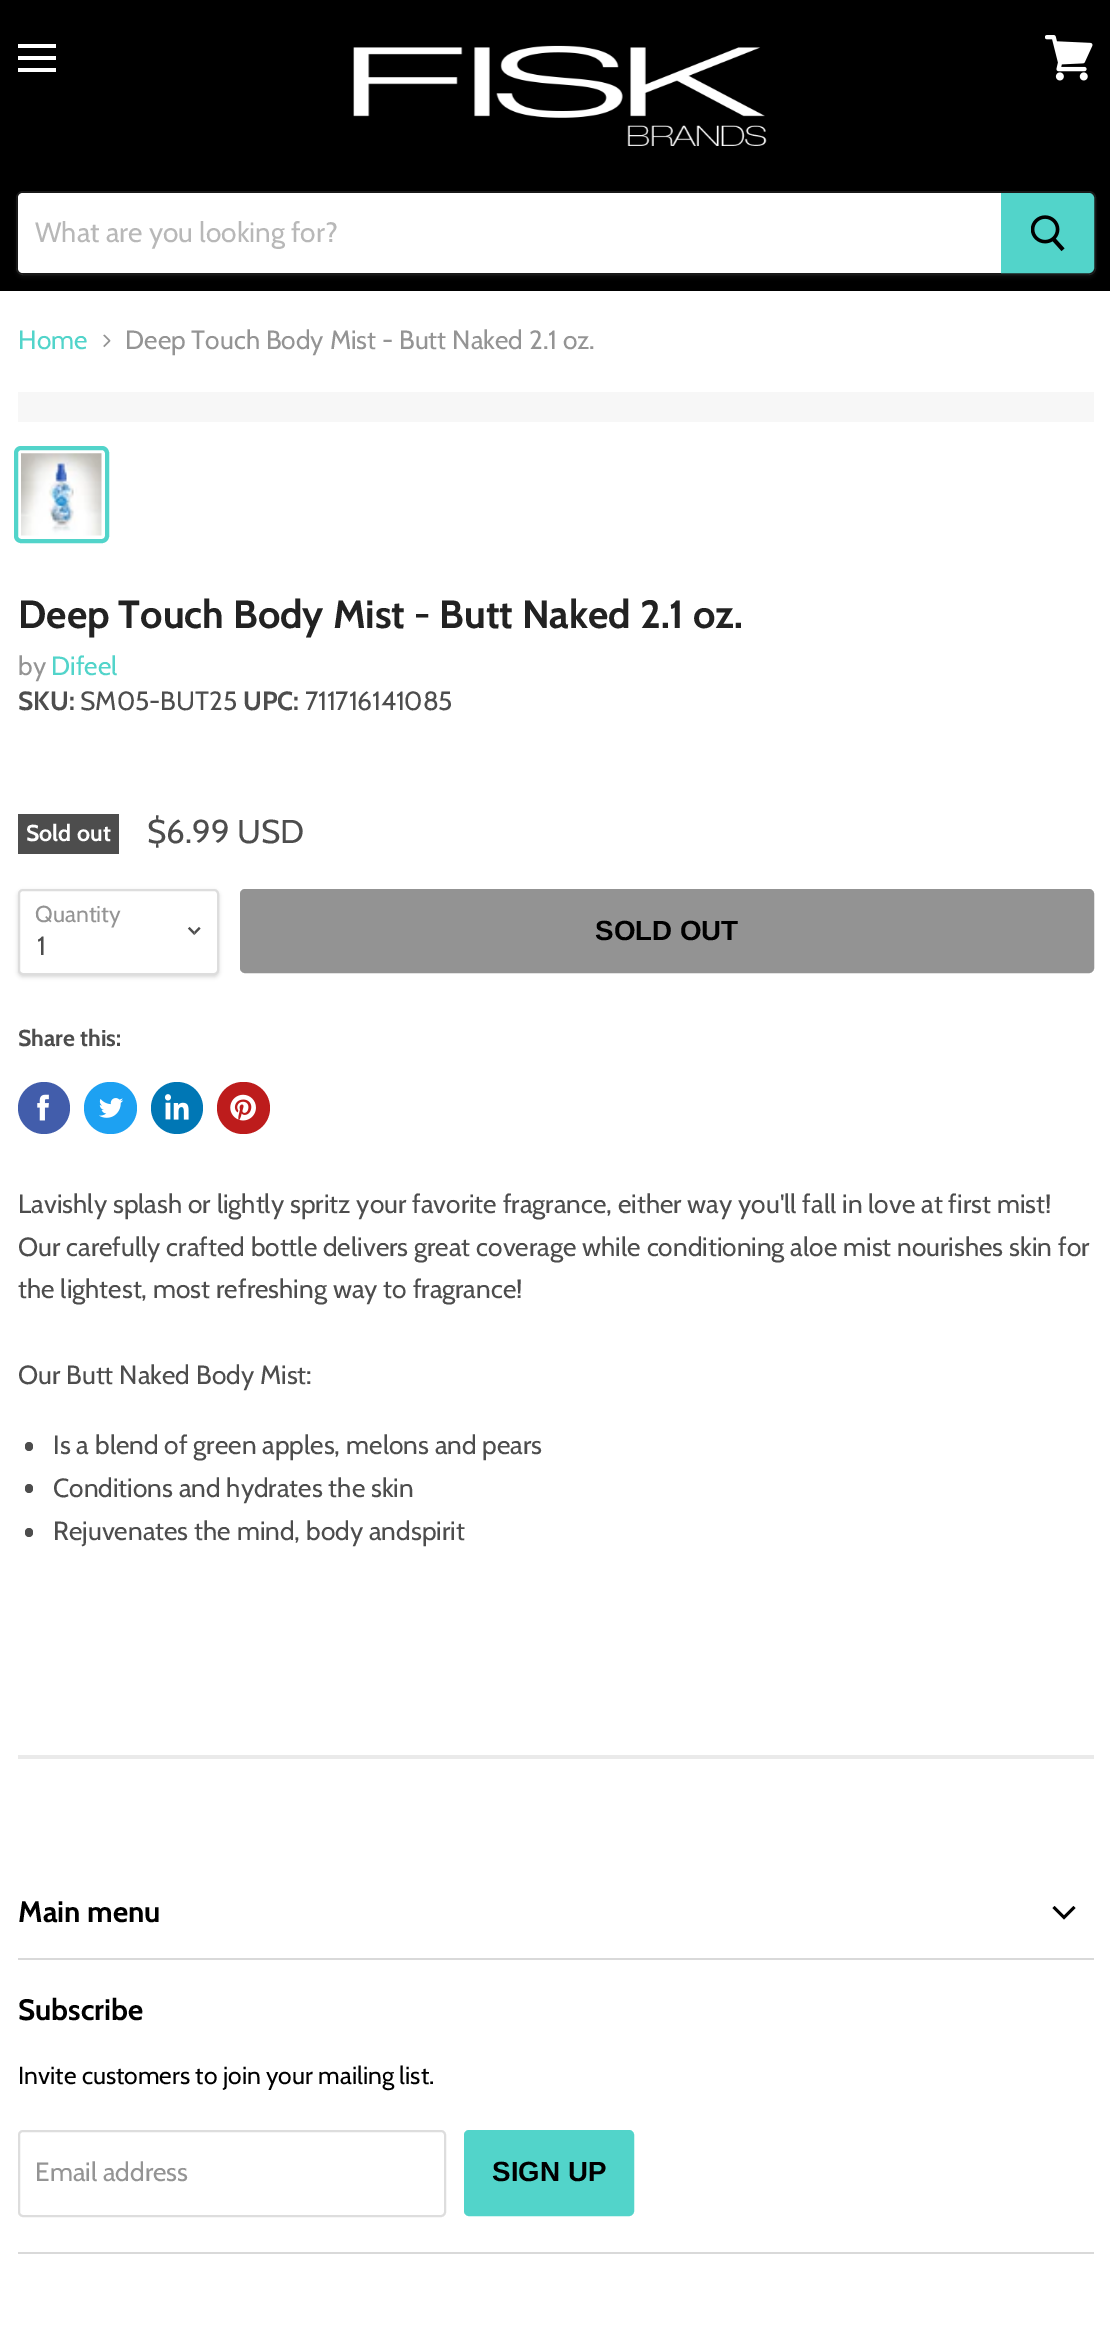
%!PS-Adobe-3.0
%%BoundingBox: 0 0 1110 2342
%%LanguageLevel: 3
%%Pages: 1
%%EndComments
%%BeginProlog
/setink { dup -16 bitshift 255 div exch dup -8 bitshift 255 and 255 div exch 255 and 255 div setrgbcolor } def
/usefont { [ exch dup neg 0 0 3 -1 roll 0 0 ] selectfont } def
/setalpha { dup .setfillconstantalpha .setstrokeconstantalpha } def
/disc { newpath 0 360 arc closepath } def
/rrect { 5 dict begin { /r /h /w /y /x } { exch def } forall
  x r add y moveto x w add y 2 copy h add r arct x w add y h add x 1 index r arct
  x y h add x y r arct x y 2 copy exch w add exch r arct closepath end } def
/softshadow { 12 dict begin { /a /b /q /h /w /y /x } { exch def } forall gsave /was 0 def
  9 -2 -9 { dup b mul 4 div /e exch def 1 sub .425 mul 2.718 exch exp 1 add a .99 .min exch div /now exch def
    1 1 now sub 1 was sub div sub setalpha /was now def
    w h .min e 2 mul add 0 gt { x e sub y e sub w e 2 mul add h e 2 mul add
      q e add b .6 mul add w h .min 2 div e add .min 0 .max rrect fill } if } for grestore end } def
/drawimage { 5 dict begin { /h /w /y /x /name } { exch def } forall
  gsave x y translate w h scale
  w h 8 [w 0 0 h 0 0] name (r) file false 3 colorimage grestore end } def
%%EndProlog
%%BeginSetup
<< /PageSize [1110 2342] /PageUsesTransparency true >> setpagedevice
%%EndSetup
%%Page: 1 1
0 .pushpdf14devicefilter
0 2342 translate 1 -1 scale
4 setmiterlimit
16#FFFFFF setink
0 0 1110 2342 rectfill
[
    [0 0 1110 291 16#000000]
    [18 44 38 4 16#FFFFFF]
    [18 56 38 4 16#FFFFFF]
    [18 68 38 4 16#FFFFFF]
] { aload pop setink rectfill } forall
(img1.raw) 1045 35 48 46 drawimage
(img2.raw) 353 45 414 101 drawimage
gsave
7 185 moveto 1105 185 lineto 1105 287 lineto 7 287 lineto closepath 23 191 moveto 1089 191 lineto 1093 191 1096 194 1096 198 curveto 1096 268 lineto 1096 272 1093 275 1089 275 curveto 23 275 lineto 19 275 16 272 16 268 curveto 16 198 lineto 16 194 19 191 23 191 curveto closepath eoclip newpath
16#7F7F7F setink
16 194 1080 84 7 2.5 0.11 softshadow
grestore
0.2 setalpha
16#7F7F7F setink
2 setlinewidth
17 192 1078 82 6 rrect stroke
1 setalpha
16#FFFFFF setink
23 193 moveto 1001 193 lineto 1001 273 lineto 23 273 lineto 20 273 18 271 18 268 curveto 18 198 lineto 18 195 20 193 23 193 curveto closepath fill
/Cabin-Regular 28 usefont
16#B8B8B8 setink
35 242 moveto (What are you looking for?) show
16#52D4CA setink
1002 194 moveto 1089 194 lineto 1091 194 1093 196 1093 198 curveto 1093 268 lineto 1093 270 1091 272 1089 272 curveto 1002 272 lineto closepath gsave fill grestore
stroke
(img3.raw) 1031 215 34 37 drawimage
/Cabin-Regular 26.25 usefont
18 349 moveto (Home) show
(img4.raw) 103 334 8 14 drawimage
16#949494 setink
125 349 moveto (Deep Touch Body Mist - Butt Naked 2.1 oz.) show
16#F7F7F7 setink
18 392 1076 30 rectfill
16#52D4CA setink
4 setlinewidth
16 448 91 93 5 rrect stroke
(img5.raw) 21 453 81 83 drawimage
/Cabin-Bold 39.4 usefont
16#222222 setink
18 628 moveto (Deep Touch Body Mist - Butt Naked 2.1 oz.) show
/Cabin-Regular 26.25 usefont
16#949494 setink
18 675 moveto (by) show
16#52D4CA setink
51 675 moveto (Difeel) show
/Cabin-Bold 26.25 usefont
16#4D4D4D setink
18 710 moveto (SKU:) show
/Cabin-Regular 26.25 usefont
80 710 moveto (SM05-BUT25) show
/Cabin-Bold 26.25 usefont
243 710 moveto (UPC:) show
/Cabin-Regular 26.25 usefont
305 710 moveto (711716141085) show
18 814 101 40 rectfill
/Cabin-Bold 23 usefont
16#FFFFFF setink
26 841 moveto (Sold out) show
/Cabin-Regular 33 usefont
16#4D4D4D setink
147 843 moveto ($6.99 USD) show
16#000000 setink
18 891 201 86 5 2 0.15 softshadow
16#FFFFFF setink
19 890 199 84 4 rrect gsave fill grestore
16#DDDDDD setink
2 setlinewidth
stroke
/Cabin-Regular 23 usefont
16#949494 setink
35 922 moveto (Quantity) show
(img6.raw) 187 926 14 10 drawimage
/Cabin-Regular 26.25 usefont
16#4D4D4D setink
37 955 moveto (1) show
16#939393 setink
241 890 852 82 4 rrect gsave fill grestore
stroke
/LiberationSans-Bold 27.75 usefont
16#000000 setink
595 940 moveto (SOLD OUT) show
/Cabin-Bold 23 usefont
16#4D4D4D setink
18 1046 moveto (Share this:) show
16#425DAB setink
44 1108 26 disc fill
(img7.raw) 37 1094 12 27 drawimage
16#1DA1F2 setink
84 1082 53 52 26 rrect fill
(img8.raw) 99 1098 25 20 drawimage
16#0077B5 setink
177 1108 26 disc fill
(img9.raw) 164 1094 25 26 drawimage
16#BD1C1C setink
217 1082 53 52 26 rrect fill
(img10.raw) 230 1094 26 27 drawimage
/Cabin-Regular 26.25 usefont
16#4D4D4D setink
[
    [(Lavishly splash or lightly spritz your favorite fragrance, either way you'll fall in love at first mist!) 18 1213]
    [(Our carefully crafted bottle delivers great coverage while conditioning aloe mist nourishes skin for) 18 1256]
    [(the lightest, most refreshing way to fragrance!) 18 1298]
    [(Our Butt Naked Body Mist:) 18 1384]
] { aload pop moveto show } forall
25 1442 8 9 4 rrect fill
53 1454 moveto (Is a blend of green apples, melons and pears) show
25 1484 8 9 4 rrect fill
53 1497 moveto (Conditions and hydrates the skin) show
25 1528 8 9 4 rrect fill
53 1540 moveto (Rejuvenates the mind, body andspirit) show
16#EAEAEA setink
18 1755 1076 4 rectfill
16#D9D9D9 setink
18 1958 1076 2 rectfill
/Cabin-Bold 29.5 usefont
16#000000 setink
18 1922 moveto (Main menu) show
(img11.raw) 1052 1906 24 14 drawimage
16#D9D9D9 setink
18 2252 1076 2 rectfill
16#000000 setink
18 2020 moveto (Subscribe) show
/Cabin-Regular 24.6 usefont
18 2084 moveto (Invite customers to join your mailing list.) show
16#DDDDDD setink
19 2131 426 85 4 rrect stroke
/Cabin-Regular 26.25 usefont
16#949494 setink
35 2181 moveto (Email address) show
16#52D4CA setink
465 2131 168 84 4 rrect gsave fill grestore
stroke
/LiberationSans-Bold 27.75 usefont
16#000000 setink
492 2181 moveto (SIGN UP) show
.poppdf14devicefilter showpage
%%EOF
